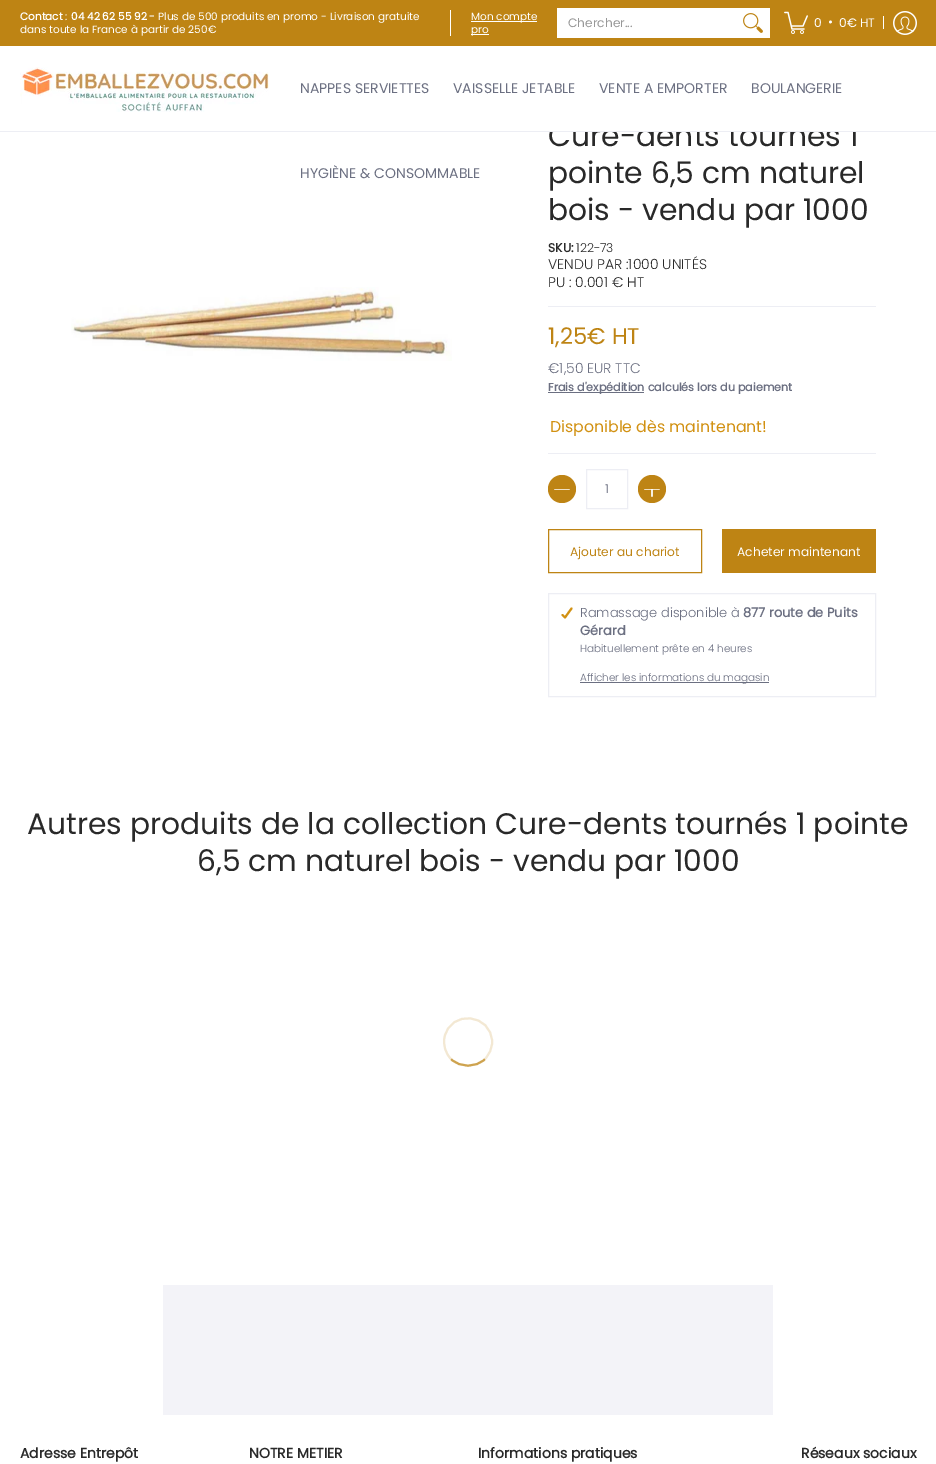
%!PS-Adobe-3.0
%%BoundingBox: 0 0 936 1464
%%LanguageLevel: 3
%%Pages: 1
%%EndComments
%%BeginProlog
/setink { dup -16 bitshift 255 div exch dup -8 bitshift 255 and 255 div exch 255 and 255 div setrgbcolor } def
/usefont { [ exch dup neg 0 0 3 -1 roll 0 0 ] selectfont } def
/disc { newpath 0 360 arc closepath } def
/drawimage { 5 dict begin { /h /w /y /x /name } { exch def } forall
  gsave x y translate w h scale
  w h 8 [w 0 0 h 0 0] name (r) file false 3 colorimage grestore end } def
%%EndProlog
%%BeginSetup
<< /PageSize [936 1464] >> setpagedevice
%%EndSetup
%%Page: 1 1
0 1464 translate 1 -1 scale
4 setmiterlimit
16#FFFFFF setink
0 0 936 1464 rectfill
/Poppins-Regular 29.75 usefont
16#292929 setink
548 146 moveto (Cure-dents tournés 1) show
16#FFFFFF setink
550 122 306 9 rectfill
16#BE8414 setink
0 0 936 46 rectfill
/Poppins-Bold 10.5 usefont
16#FFFFFF setink
20 20 moveto (Contact) show
/Poppins-Regular 10.5 usefont
65 20 moveto (:) show
/Poppins-Bold 10.5 usefont
71 20 moveto (04 42 62 55 92 -) show
/Poppins-Regular 10.5 usefont
158 20 moveto (Plus de 500 produits en promo - Livraison gratuite) show
20 33 moveto (dans toute la France à partir de 250€) show
450 10 1 26 rectfill
471 21 66 1 rectfill
471 20 moveto (Mon compte) show
471 34 18 1 rectfill
471 33 moveto (pro) show
557 8 213 30 rectfill
(img1.raw) 743 13 20 20 drawimage
/Poppins-Regular 12.25 usefont
16#989898 setink
568 27 moveto (Chercher...) show
(img2.raw) 784 11 24 23 drawimage
16#FFFFFF setink
[
    [(0) 814 27]
    [(•) 828 26]
    [(0€ HT) 839 27]
] { aload pop moveto show } forall
883 16 1 13 rectfill
(img3.raw) 893 11 24 24 drawimage
16#EDEEF4 setink
0 131 936 1 rectfill
(img4.raw) 20 67 249 45 drawimage
/Poppins-Regular 14 usefont
16#6B6F81 setink
[
    [(NAPPES SERVIETTES) 300 93]
    [(VAISSELLE JETABLE) 453 93]
    [(VENTE A EMPORTER) 599 93]
    [(BOULANGERIE) 751 93]
    [(HYGIÈNE & CONSOMMABLE) 300 178]
] { aload pop moveto show } forall
(img5.raw) 71 287 381 74 drawimage
/Poppins-Regular 29.75 usefont
16#292929 setink
548 183 moveto (pointe 6,5 cm naturel) show
548 220 moveto (bois - vendu par 1000) show
16#EDEEF4 setink
548 306 328 1 rectfill
/Poppins-Bold 12.25 usefont
16#292929 setink
548 252 moveto (SKU:) show
/Poppins-Light 12.25 usefont
576 252 moveto (122-73) show
/Poppins-Light 14 usefont
548 269 moveto (VENDU PAR :1000 UNITÉS) show
548 287 moveto (PU : 0.001 € HT) show
/Poppins-Regular 22.75 usefont
16#BE8414 setink
548 344 moveto (1,25€ HT) show
/Poppins-Light 14 usefont
16#6B6F81 setink
548 373 moveto (€1,50 EUR TTC) show
548 392 96 1 rectfill
/Poppins-Bold 11.2 usefont
548 391 moveto (Frais d'expédition calculés lors du paiement) show
16#EDEEF4 setink
548 453 328 1 rectfill
/Poppins-Regular 15.75 usefont
16#D29112 setink
550 432 moveto (Disponible dès maintenant!) show
16#BE8414 setink
562 489 14 disc fill
(img6.raw) 554 489 16 1 drawimage
16#EDEEF4 setink
586.5 469.5 41 39 rectstroke
/Poppins-Regular 12.25 usefont
16#6B6F81 setink
605 493 moveto (1) show
16#BE8414 setink
652 489 14 disc fill
(img7.raw) 644 489 16 8 drawimage
548.5 529.5 153 43 rectstroke
570 556 moveto (Ajouter au chariot) show
722 529 154 44 rectfill
16#FFFFFF setink
737 556 moveto (Acheter maintenant) show
16#EDEEF4 setink
548.5 593.5 327 103 rectstroke
16#D29112 setink
2 setlinewidth
1 setlinecap
1 setlinejoin
571.5 608.5 moveto 565 617.5 lineto 562.5 615 lineto stroke
/Poppins-Light 13 usefont
16#6B6F81 setink
580 617 moveto (Ramassage disponible à) show
/Poppins-Bold 13 usefont
743 617 moveto (877 route de Puits) show
580 635 moveto (Gérard) show
/Poppins-Light 10.4 usefont
580 652 moveto (Habituellement prête en 4 heures) show
580 682 189 1 rectfill
580 681 moveto (Afficher les informations du magasin) show
/Poppins-Regular 29.75 usefont
16#292929 setink
27 834 moveto (Autres produits de la collection Cure-dents tournés 1 pointe) show
197 871 moveto (6,5 cm naturel bois - vendu par 1000) show
16#CEA34F setink
0 setlinecap
0 setlinejoin
485 1059 moveto 475.5 1068 460.5 1068 451 1059 curveto stroke
16#F3E8D3 setink
451 1059 moveto 445.5 1053.5 443 1045 444.5 1037.5 curveto 450 1009 492 1013.5 492 1042 curveto 492 1048.5 489.5 1054.5 485 1059 curveto stroke
16#F3F3F8 setink
163 1285 610 130 rectfill
/Poppins-Bold 14 usefont
16#292929 setink
[
    [(Adresse Entrepôt) 20 1458]
    [(NOTRE METIER) 249 1458]
    [(Informations pratiques) 478 1458]
    [(Réseaux sociaux) 801 1458]
] { aload pop moveto show } forall
showpage
%%EOF
